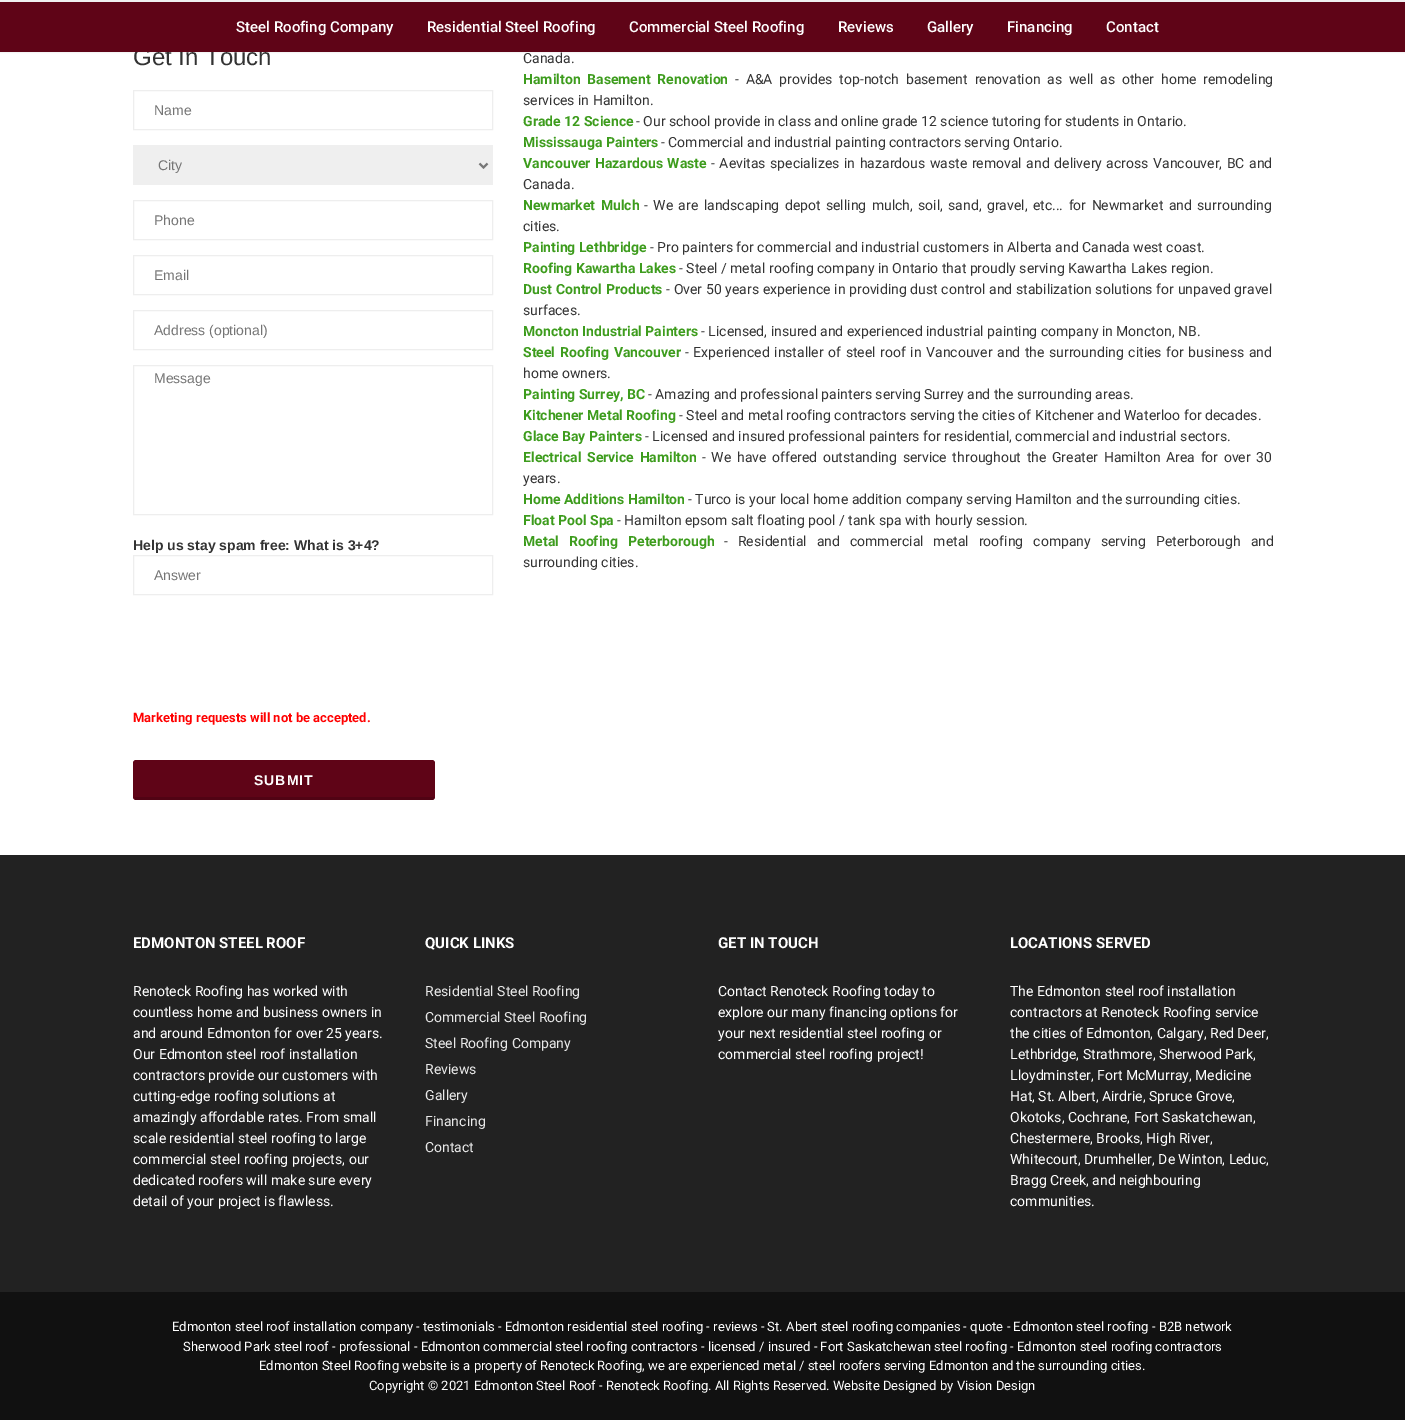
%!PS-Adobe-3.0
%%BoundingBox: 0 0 1405 1420
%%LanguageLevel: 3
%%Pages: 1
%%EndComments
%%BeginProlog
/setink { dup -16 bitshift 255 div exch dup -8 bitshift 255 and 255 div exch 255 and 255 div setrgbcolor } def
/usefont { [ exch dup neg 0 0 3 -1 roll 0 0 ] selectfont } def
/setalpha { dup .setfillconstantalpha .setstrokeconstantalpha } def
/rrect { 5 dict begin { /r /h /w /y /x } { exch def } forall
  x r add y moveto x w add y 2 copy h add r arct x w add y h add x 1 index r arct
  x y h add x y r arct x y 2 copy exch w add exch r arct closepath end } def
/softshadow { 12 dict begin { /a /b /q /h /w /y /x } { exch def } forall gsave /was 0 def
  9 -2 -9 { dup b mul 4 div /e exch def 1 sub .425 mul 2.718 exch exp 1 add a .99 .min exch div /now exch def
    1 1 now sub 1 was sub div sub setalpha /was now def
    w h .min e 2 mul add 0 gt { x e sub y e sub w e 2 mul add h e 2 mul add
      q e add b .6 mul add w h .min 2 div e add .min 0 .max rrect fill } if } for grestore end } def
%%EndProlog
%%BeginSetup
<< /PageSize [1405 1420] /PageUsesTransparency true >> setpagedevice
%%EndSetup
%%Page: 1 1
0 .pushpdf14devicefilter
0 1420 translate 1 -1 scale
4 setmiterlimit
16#FFFFFF setink
0 0 1405 1420 rectfill
16#DDDDDD setink
0 0 1405 52 0 1 1 softshadow
16#F0F0F0 setink
0 0 1405 2 rectfill
/LiberationSans-Regular 24 usefont
16#333333 setink
133 65 moveto (Get In Touch) show
16#5F0417 setink
0 2 1405 50 rectfill
/Roboto-Medium 15 usefont
16#FFFFFF setink
[
    [(Steel Roofing Company) 236 32]
    [(Residential Steel Roofing) 427 32]
    [(Commercial Steel Roofing) 629 32]
    [(Reviews) 838 32]
    [(Gallery) 927 32]
    [(Financing) 1007 32]
    [(Contact) 1106 32]
] { aload pop moveto show } forall
16#EEEEEE setink
133.5 90.5 359 39 rectstroke
/LiberationSans-Regular 14 usefont
16#757575 setink
154 115 moveto (Name) show
16#EFEFEF setink
133 145 360 40 rectfill
16#777777 setink
2 setlinewidth
479.5 163.5 moveto 483.5 167.5 lineto 487.5 163.5 lineto stroke
16#757575 setink
158 170 moveto (City) show
16#EEEEEE setink
1 setlinewidth
133.5 200.5 359 39 rectstroke
16#757575 setink
154 225 moveto (Phone) show
16#EEEEEE setink
133.5 255.5 359 39 rectstroke
16#757575 setink
154 280 moveto (Email) show
16#EEEEEE setink
133.5 310.5 359 39 rectstroke
16#757575 setink
154 335 moveto (Address \(optional\)) show
16#EEEEEE setink
133.5 365.5 359 149 rectstroke
16#757575 setink
154 383 moveto (Message) show
/LiberationSans-Bold 14 usefont
16#333333 setink
133 550 moveto (Help us stay spam free: What is 3+4?) show
16#EEEEEE setink
133.5 555.5 359 39 rectstroke
/LiberationSans-Regular 14 usefont
16#757575 setink
154 580 moveto (Answer) show
/Roboto-Bold 13 usefont
16#FF0000 setink
133 722 moveto (Marketing requests will not be accepted.) show
16#5F0417 setink
133 760 302 40 3 rrect fill
0.15 setalpha
16#000000 setink
135 797 299 3 rectfill
/LiberationSans-Bold 14 usefont
1 setalpha
16#FFFFFF setink
254 785 moveto 1 0 (SUBMIT) ashow
/Roboto-Regular 14 usefont
16#333333 setink
523 63 moveto (Canada.) show
/Roboto-Bold 14 usefont
16#3D9C1D setink
523 84 moveto 3.25 0 32 (Hamilton Basement Renovation) widthshow
/Roboto-Regular 14 usefont
16#333333 setink
735 84 moveto 3.25 0 32 (- A&A provides top-notch basement renovation as well as other home remodeling) widthshow
523 105 moveto (services in Hamilton.) show
/Roboto-Bold 14 usefont
16#3D9C1D setink
523 126 moveto (Grade 12 Science) show
/Roboto-Regular 14 usefont
16#333333 setink
636 126 moveto (- Our school provide in class and online grade 12 science tutoring for students in Ontario.) show
/Roboto-Bold 14 usefont
16#3D9C1D setink
523 147 moveto (Mississauga Painters) show
/Roboto-Regular 14 usefont
16#333333 setink
661 147 moveto (- Commercial and industrial painting contractors serving Ontario.) show
/Roboto-Bold 14 usefont
16#3D9C1D setink
523 168 moveto 1.1 0 32 (Vancouver Hazardous Waste) widthshow
/Roboto-Regular 14 usefont
16#333333 setink
711 168 moveto 1.1 0 32 (- Aevitas specializes in hazardous waste removal and delivery across Vancouver, BC and) widthshow
523 189 moveto (Canada.) show
/Roboto-Bold 14 usefont
16#3D9C1D setink
523 210 moveto 1.9 0 32 (Newmarket Mulch) widthshow
/Roboto-Regular 14 usefont
16#333333 setink
644 210 moveto 1.9 0 32 (- We are landscaping depot selling mulch, soil, sand, gravel, etc... for Newmarket and surrounding) widthshow
523 231 moveto (cities.) show
/Roboto-Bold 14 usefont
16#3D9C1D setink
523 252 moveto (Painting Lethbridge) show
/Roboto-Regular 14 usefont
16#333333 setink
650 252 moveto (- Pro painters for commercial and industrial customers in Alberta and Canada west coast.) show
/Roboto-Bold 14 usefont
16#3D9C1D setink
523 273 moveto (Roofing Kawartha Lakes) show
/Roboto-Regular 14 usefont
16#333333 setink
679 273 moveto (- Steel / metal roofing company in Ontario that proudly serving Kawartha Lakes region.) show
/Roboto-Bold 14 usefont
16#3D9C1D setink
523 294 moveto 0.25 0 32 (Dust Control Products) widthshow
/Roboto-Regular 14 usefont
16#333333 setink
666 294 moveto 0.25 0 32 (- Over 50 years experience in providing dust control and stabilization solutions for unpaved gravel) widthshow
523 315 moveto (surfaces.) show
/Roboto-Bold 14 usefont
16#3D9C1D setink
523 336 moveto (Moncton Industrial Painters) show
/Roboto-Regular 14 usefont
16#333333 setink
701 336 moveto (- Licensed, insured and experienced industrial painting company in Moncton, NB.) show
/Roboto-Bold 14 usefont
16#3D9C1D setink
523 357 moveto 1.1 0 32 (Steel Roofing Vancouver) widthshow
/Roboto-Regular 14 usefont
16#333333 setink
685 357 moveto 1.1 0 32 (- Experienced installer of steel roof in Vancouver and the surrounding cities for business and) widthshow
523 378 moveto (home owners.) show
/Roboto-Bold 14 usefont
16#3D9C1D setink
523 399 moveto (Painting Surrey, BC) show
/Roboto-Regular 14 usefont
16#333333 setink
648 399 moveto (- Amazing and professional painters serving Surrey and the surrounding areas.) show
/Roboto-Bold 14 usefont
16#3D9C1D setink
523 420 moveto (Kitchener Metal Roofing) show
/Roboto-Regular 14 usefont
16#333333 setink
679 420 moveto (- Steel and metal roofing contractors serving the cities of Kitchener and Waterloo for decades.) show
/Roboto-Bold 14 usefont
16#3D9C1D setink
523 441 moveto (Glace Bay Painters) show
/Roboto-Regular 14 usefont
16#333333 setink
645 441 moveto (- Licensed and insured professional painters for residential, commercial and industrial sectors.) show
/Roboto-Bold 14 usefont
16#3D9C1D setink
523 462 moveto 2.1 0 32 (Electrical Service Hamilton) widthshow
/Roboto-Regular 14 usefont
16#333333 setink
702 462 moveto 2.1 0 32 (- We have offered outstanding service throughout the Greater Hamilton Area for over 30) widthshow
523 483 moveto (years.) show
/Roboto-Bold 14 usefont
16#3D9C1D setink
523 504 moveto (Home Additions Hamilton) show
/Roboto-Regular 14 usefont
16#333333 setink
688 504 moveto (- Turco is your local home addition company serving Hamilton and the surrounding cities.) show
/Roboto-Bold 14 usefont
16#3D9C1D setink
523 525 moveto (Float Pool Spa) show
/Roboto-Regular 14 usefont
16#333333 setink
617 525 moveto (- Hamilton epsom salt floating pool / tank spa with hourly session.) show
/Roboto-Bold 14 usefont
16#3D9C1D setink
523 546 moveto 6.5 0 32 (Metal Roofing Peterborough) widthshow
/Roboto-Regular 14 usefont
16#333333 setink
724 546 moveto 6.5 0 32 (- Residential and commercial metal roofing company serving Peterborough and) widthshow
523 567 moveto (surrounding cities.) show
16#222222 setink
0 855 1405 437 rectfill
/Roboto-Bold 15 usefont
16#FFFFFF setink
133 948 moveto (EDMONTON STEEL ROOF) show
/Roboto-Regular 14 usefont
[
    [(Renoteck Roofing has worked with) 133 996]
    [(countless home and business owners in) 133 1017]
    [(and around Edmonton for over 25 years.) 133 1038]
    [(Our Edmonton steel roof installation) 133 1059]
    [(contractors provide our customers with) 133 1080]
    [(cutting-edge roofing solutions at) 133 1101]
    [(amazingly affordable rates. From small) 133 1122]
    [(scale residential steel roofing to large) 133 1143]
    [(commercial steel roofing projects, our) 133 1164]
    [(dedicated roofers will make sure every) 133 1185]
    [(detail of your project is flawless.) 133 1206]
] { aload pop moveto show } forall
/Roboto-Bold 15 usefont
425 948 moveto (QUICK LINKS) show
/Roboto-Regular 14 usefont
16#E9E9E9 setink
[
    [(Residential Steel Roofing) 425 996]
    [(Commercial Steel Roofing) 425 1022]
    [(Steel Roofing Company) 425 1048]
    [(Reviews) 425 1074]
    [(Gallery) 425 1100]
    [(Financing) 425 1126]
    [(Contact) 425 1152]
] { aload pop moveto show } forall
/Roboto-Bold 15 usefont
16#FFFFFF setink
718 948 moveto (GET IN TOUCH) show
/Roboto-Regular 14 usefont
[
    [(Contact Renoteck Roofing today to) 718 996]
    [(explore our many financing options for) 718 1017]
    [(your next residential steel roofing or) 718 1038]
    [(commercial steel roofing project!) 718 1059]
] { aload pop moveto show } forall
/Roboto-Bold 15 usefont
1010 948 moveto (LOCATIONS SERVED) show
/Roboto-Regular 14 usefont
[
    [(The Edmonton steel roof installation) 1010 996]
    [(contractors at Renoteck Roofing service) 1010 1017]
    [(the cities of Edmonton, Calgary, Red Deer,) 1010 1038]
    [(Lethbridge, Strathmore, Sherwood Park,) 1010 1059]
    [(Lloydminster, Fort McMurray, Medicine) 1010 1080]
    [(Hat, St. Albert, Airdrie, Spruce Grove,) 1010 1101]
    [(Okotoks, Cochrane, Fort Saskatchewan,) 1010 1122]
    [(Chestermere, Brooks, High River,) 1010 1143]
    [(Whitecourt, Drumheller, De Winton, Leduc,) 1010 1164]
    [(Bragg Creek, and neighbouring) 1010 1185]
    [(communities.) 1010 1206]
] { aload pop moveto show } forall
16#111111 setink
0 1292 1405 128 rectfill
/Roboto-Regular 13 usefont
16#FFFFFF setink
[
    [(Edmonton steel roof installation company - testimonials - Edmonton residential steel roofing - reviews - St. Abert steel roofing companies - quote - Edmonton steel roofing - B2B network) 172 1331]
    [(Sherwood Park steel roof - professional - Edmonton commercial steel roofing contractors - licensed / insured - Fort Saskatchewan steel roofing - Edmonton steel roofing contractors) 183 1351]
    [(Edmonton Steel Roofing website is a property of Renoteck Roofing, we are experienced metal / steel roofers serving Edmonton and the surrounding cities.) 259 1370]
    [(Copyright © 2021 Edmonton Steel Roof - Renoteck Roofing. All Rights Reserved. Website Designed by Vision Design) 369 1390]
] { aload pop moveto show } forall
.poppdf14devicefilter showpage
%%EOF
